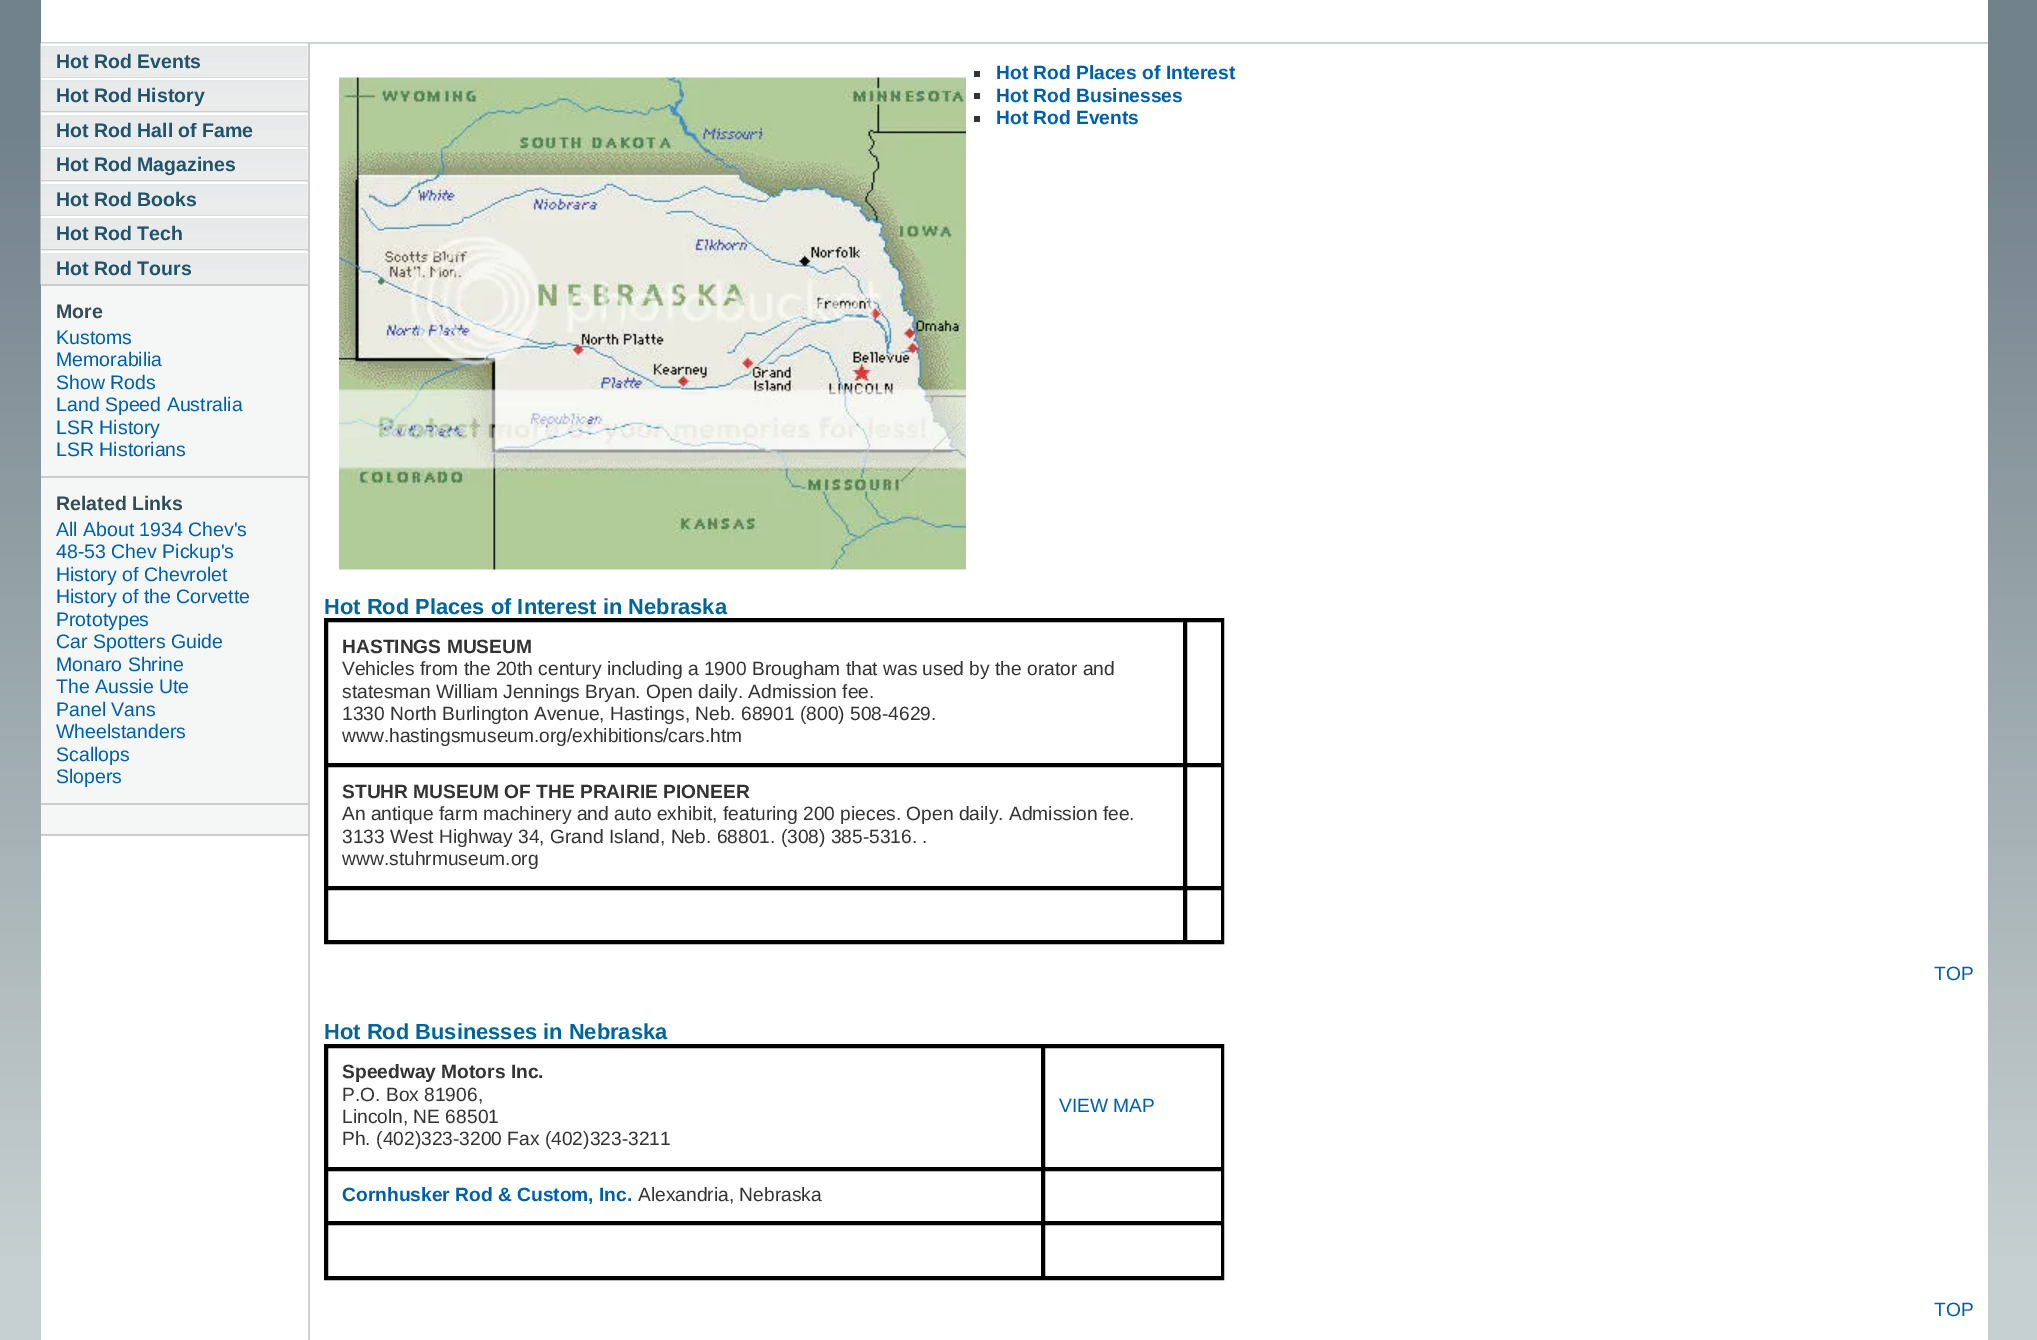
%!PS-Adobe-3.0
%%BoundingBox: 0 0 2037 1340
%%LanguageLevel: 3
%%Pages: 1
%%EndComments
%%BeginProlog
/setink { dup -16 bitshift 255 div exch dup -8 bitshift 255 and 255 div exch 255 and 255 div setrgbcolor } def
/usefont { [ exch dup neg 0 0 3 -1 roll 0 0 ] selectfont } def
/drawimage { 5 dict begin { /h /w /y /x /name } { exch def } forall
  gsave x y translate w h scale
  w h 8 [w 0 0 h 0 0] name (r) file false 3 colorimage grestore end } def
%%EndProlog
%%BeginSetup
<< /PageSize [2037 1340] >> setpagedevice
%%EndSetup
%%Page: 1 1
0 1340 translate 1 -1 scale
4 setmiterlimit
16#FFFFFF setink
0 0 2037 1340 rectfill
(img1.raw) 0 0 2037 1340 drawimage
[
    [41 0 1947 1340 16#FFFFFF]
    [41 42 1947 2 16#CCD2D2]
    [41 46 267 788 16#F5F7F7]
    [308 44 2 792 16#CCCCCC]
    [41 834 268 2 16#CCCCCC]
] { aload pop setink rectfill } forall
(img2.raw) 40 43 268 35 drawimage
16#FFFFFF setink
41 44 267 2 rectfill
16#CCCCCC setink
41 77 267 1 rectfill
/LiberationSans-Bold 19.5 usefont
16#21536A setink
56 68 moveto (Hot Rod Events) show
(img3.raw) 40 77 268 35 drawimage
16#FFFFFF setink
41 78 267 2 rectfill
16#CCCCCC setink
41 111 267 2 rectfill
16#21536A setink
56 102 moveto (Hot Rod History) show
(img4.raw) 40 112 268 35 drawimage
16#FFFFFF setink
41 113 267 2 rectfill
16#CCCCCC setink
41 146 267 1 rectfill
16#21536A setink
56 137 moveto (Hot Rod Hall of Fame) show
(img5.raw) 40 146 268 35 drawimage
16#FFFFFF setink
41 147 267 2 rectfill
16#CCCCCC setink
41 180 267 2 rectfill
16#21536A setink
56 171 moveto (Hot Rod Magazines) show
(img6.raw) 40 181 268 35 drawimage
16#FFFFFF setink
41 182 267 2 rectfill
16#CCCCCC setink
41 215 267 1 rectfill
16#21536A setink
56 206 moveto (Hot Rod Books) show
(img7.raw) 40 215 268 35 drawimage
16#FFFFFF setink
41 216 267 2 rectfill
16#CCCCCC setink
41 249 267 2 rectfill
16#21536A setink
56 240 moveto (Hot Rod Tech) show
(img8.raw) 40 250 268 35 drawimage
16#FFFFFF setink
41 251 267 2 rectfill
16#CCCCCC setink
41 284 267 2 rectfill
16#21536A setink
56 275 moveto (Hot Rod Tours) show
16#CCCCCC setink
41 476 267 2 rectfill
16#334D55 setink
56 318 moveto (More) show
/LiberationSans-Regular 19.5 usefont
16#005FA9 setink
[
    [(Kustoms) 56 344]
    [(Memorabilia) 56 366]
    [(Show Rods) 56 389]
    [(Land Speed Australia) 56 411]
    [(LSR History) 56 434]
    [(LSR Historians) 56 456]
] { aload pop moveto show } forall
16#CCCCCC setink
41 803 267 2 rectfill
/LiberationSans-Bold 19.5 usefont
16#334D55 setink
56 510 moveto (Related Links) show
/LiberationSans-Regular 19.5 usefont
16#005FA9 setink
[
    [(All About 1934 Chev's) 56 536]
    [(48-53 Chev Pickup's) 56 558]
    [(History of Chevrolet) 56 581]
    [(History of the Corvette) 56 603]
    [(Prototypes) 56 626]
    [(Car Spotters Guide) 56 648]
    [(Monaro Shrine) 56 671]
    [(The Aussie Ute) 56 693]
    [(Panel Vans) 56 716]
    [(Wheelstanders) 56 738]
    [(Scallops) 56 761]
    [(Slopers) 56 783]
] { aload pop moveto show } forall
16#CCD2D2 setink
308 836 2 504 rectfill
(img9.raw) 339 77 627 493 drawimage
16#333333 setink
974 71 6 6 rectfill
/LiberationSans-Bold 19.2 usefont
16#005FA9 setink
996 79 moveto (Hot Rod Places of Interest) show
16#333333 setink
974 93 6 6 rectfill
16#005FA9 setink
996 102 moveto (Hot Rod Businesses) show
16#333333 setink
974 116 6 6 rectfill
16#005FA9 setink
996 124 moveto (Hot Rod Events) show
/LiberationSans-Bold 21.9 usefont
16#006699 setink
324 614 moveto (Hot Rod Places of Interest in Nebraska) show
16#000000 setink
2 setlinewidth
325 619 898 324 rectstroke
327 621 857 143 rectstroke
/LiberationSans-Bold 19.2 usefont
16#333333 setink
342 653 moveto (HASTINGS MUSEUM) show
/LiberationSans-Regular 19.2 usefont
[
    [(Vehicles from the 20th century including a 1900 Brougham that was used by the orator and) 342 675]
    [(statesman William Jennings Bryan. Open daily. Admission fee.) 342 698]
    [(1330 North Burlington Avenue, Hastings, Neb. 68901 \(800\) 508-4629.) 342 720]
    [(www.hastingsmuseum.org/exhibitions/cars.htm) 342 742]
] { aload pop moveto show } forall
16#000000 setink
1186 621 36 143 rectstroke
327 766 857 121 rectstroke
/LiberationSans-Bold 19.2 usefont
16#333333 setink
342 798 moveto (STUHR MUSEUM OF THE PRAIRIE PIONEER) show
/LiberationSans-Regular 19.2 usefont
[
    [(An antique farm machinery and auto exhibit, featuring 200 pieces. Open daily. Admission fee.) 342 820]
    [(3133 West Highway 34, Grand Island, Neb. 68801. \(308\) 385-5316. .) 342 843]
    [(www.stuhrmuseum.org) 342 865]
] { aload pop moveto show } forall
16#000000 setink
1186 766 36 121 rectstroke
327 889 857 52 rectstroke
1186 889 36 52 rectstroke
16#005FA9 setink
1934 980 moveto (TOP) show
/LiberationSans-Bold 21.9 usefont
16#006699 setink
324 1039 moveto (Hot Rod Businesses in Nebraska) show
16#000000 setink
325 1045 898 234 rectstroke
327 1047 715 121 rectstroke
/LiberationSans-Bold 19.2 usefont
16#333333 setink
342 1078 moveto (Speedway Motors Inc.) show
/LiberationSans-Regular 19.2 usefont
[
    [(P.O. Box 81906,) 342 1101]
    [(Lincoln, NE 68501) 342 1123]
    [(Ph. \(402\)323-3200 Fax \(402\)323-3211) 342 1145]
] { aload pop moveto show } forall
16#000000 setink
1044 1047 178 121 rectstroke
16#005FA9 setink
1059 1112 moveto (VIEW MAP) show
16#000000 setink
327 1170 715 52 rectstroke
/LiberationSans-Bold 19.2 usefont
16#005FA9 setink
342 1201 moveto (Cornhusker Rod & Custom, Inc.) show
/LiberationSans-Regular 19.2 usefont
16#333333 setink
638 1201 moveto (Alexandria, Nebraska) show
16#000000 setink
1044 1170 178 52 rectstroke
327 1224 715 53 rectstroke
1044 1224 178 53 rectstroke
16#005FA9 setink
1934 1316 moveto (TOP) show
showpage
%%EOF
